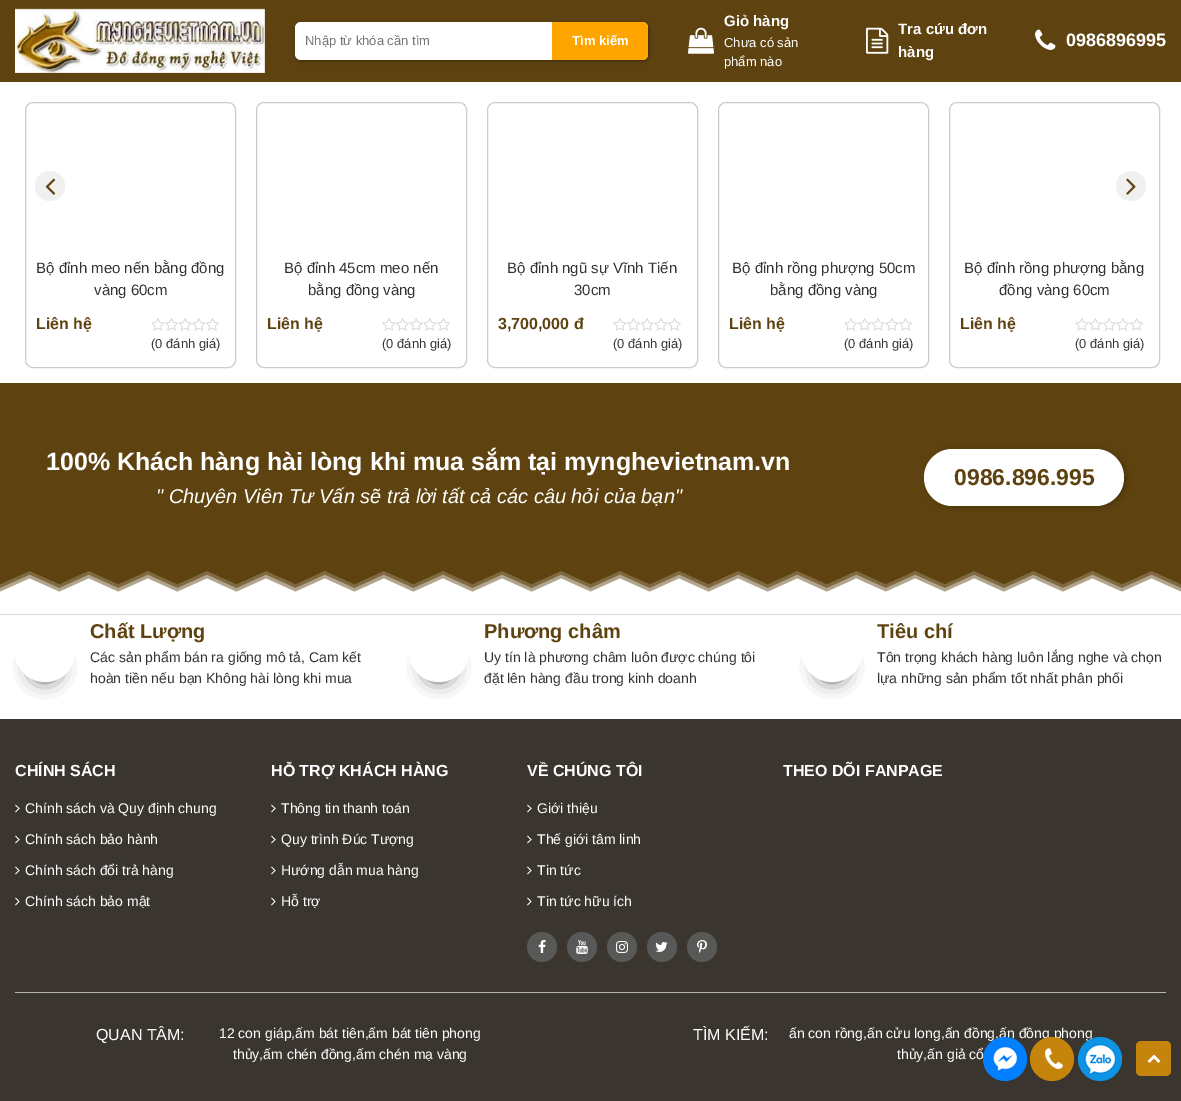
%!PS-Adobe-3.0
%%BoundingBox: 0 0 1181 1101
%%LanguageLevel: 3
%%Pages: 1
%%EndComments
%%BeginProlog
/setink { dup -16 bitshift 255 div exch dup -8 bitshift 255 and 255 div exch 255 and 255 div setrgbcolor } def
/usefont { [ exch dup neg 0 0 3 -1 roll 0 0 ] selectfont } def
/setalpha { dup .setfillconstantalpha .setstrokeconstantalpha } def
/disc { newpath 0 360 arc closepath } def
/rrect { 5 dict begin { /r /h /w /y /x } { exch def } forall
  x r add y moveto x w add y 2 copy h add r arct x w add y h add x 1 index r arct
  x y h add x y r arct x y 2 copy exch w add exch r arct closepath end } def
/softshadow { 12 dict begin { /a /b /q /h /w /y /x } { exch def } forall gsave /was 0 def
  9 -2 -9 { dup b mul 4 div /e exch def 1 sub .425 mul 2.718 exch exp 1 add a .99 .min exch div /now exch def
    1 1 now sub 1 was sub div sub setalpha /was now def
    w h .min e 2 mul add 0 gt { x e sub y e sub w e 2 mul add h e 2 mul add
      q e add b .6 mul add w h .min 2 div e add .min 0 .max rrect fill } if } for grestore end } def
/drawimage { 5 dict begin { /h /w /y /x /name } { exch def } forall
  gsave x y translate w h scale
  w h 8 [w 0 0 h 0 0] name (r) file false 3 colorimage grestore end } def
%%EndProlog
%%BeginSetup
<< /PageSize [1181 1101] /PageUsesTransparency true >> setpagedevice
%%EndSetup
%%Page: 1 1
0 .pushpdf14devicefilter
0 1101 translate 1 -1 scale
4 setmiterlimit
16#FFFFFF setink
0 0 1181 1101 rectfill
16#5E4310 setink
0 0 1181 82 rectfill
(img1.raw) 15 8 250 65 drawimage
16#000000 setink
296 23 353 38 6 2 0.38 softshadow
16#FFFFFF setink
295 22 353 38 6 rrect fill
/LiberationSans-Regular 13 usefont
16#757575 setink
305 45 moveto (Nhập từ khóa cần tìm) show
16#FFA500 setink
552 22 moveto 642 22 lineto 645.5 22 648 24.5 648 28 curveto 648 54 lineto 648 57.5 645.5 60 642 60 curveto 552 60 lineto closepath fill
/LiberationSans-Bold 13 usefont
16#FFFFFF setink
572 45 moveto (Tìm kiếm) show
(img2.raw) 688 27 26 27 drawimage
/LiberationSans-Bold 15 usefont
724 26 moveto (Giỏ hàng) show
/LiberationSans-Regular 13 usefont
724 47 moveto (Chưa có sản) show
724 66 moveto (phẩm nào) show
(img3.raw) 866 27 23 27 drawimage
/LiberationSans-Bold 15 usefont
898 34 moveto (Tra cứu đơn) show
898 57 moveto (hàng) show
(img4.raw) 1035 29 21 21 drawimage
/LiberationSans-Bold 18 usefont
1066 46 moveto (0986896995) show
16#CCCCCC setink
25.5 102.5 210 265 7.5 rrect stroke
16#F0F0F0 setink
50 186 15 disc fill
(img5.raw) 45 178 11 17 drawimage
16#CCCCCC setink
949.5 102.5 210 265 7.5 rrect stroke
16#F0F0F0 setink
1131 186 15 disc fill
(img6.raw) 1126 178 10 17 drawimage
/LiberationSans-Regular 15 usefont
16#333333 setink
36 273 moveto (Bộ đỉnh meo nến bằng đồng) show
94 295 moveto (vàng 60cm) show
/LiberationSans-Bold 16 usefont
16#5E4310 setink
36 329 moveto (Liên hệ) show
(img7.raw) 151 318 68 13 drawimage
/LiberationSans-Regular 13 usefont
16#333333 setink
151 348 moveto (\(0 đánh giá\)) show
16#CCCCCC setink
256.5 102.5 210 265 7.5 rrect stroke
/LiberationSans-Regular 15 usefont
16#333333 setink
284 273 moveto (Bộ đỉnh 45cm meo nến) show
308 295 moveto (bằng đồng vàng) show
/LiberationSans-Bold 16 usefont
16#5E4310 setink
267 329 moveto (Liên hệ) show
(img7.raw) 382 318 68 13 drawimage
/LiberationSans-Regular 13 usefont
16#333333 setink
382 348 moveto (\(0 đánh giá\)) show
16#CCCCCC setink
487.5 102.5 210 265 7.5 rrect stroke
/LiberationSans-Regular 15 usefont
16#333333 setink
507 273 moveto (Bộ đỉnh ngũ sự Vĩnh Tiến) show
574 295 moveto (30cm) show
/LiberationSans-Bold 16 usefont
16#5E4310 setink
498 329 moveto (3,700,000 đ) show
(img7.raw) 613 318 68 13 drawimage
/LiberationSans-Regular 13 usefont
16#333333 setink
613 348 moveto (\(0 đánh giá\)) show
16#CCCCCC setink
718.5 102.5 210 265 7.5 rrect stroke
/LiberationSans-Regular 15 usefont
16#333333 setink
732 273 moveto (Bộ đỉnh rồng phượng 50cm) show
770 295 moveto (bằng đồng vàng) show
/LiberationSans-Bold 16 usefont
16#5E4310 setink
729 329 moveto (Liên hệ) show
(img7.raw) 844 318 68 13 drawimage
/LiberationSans-Regular 13 usefont
16#333333 setink
844 348 moveto (\(0 đánh giá\)) show
/LiberationSans-Regular 15 usefont
964 273 moveto (Bộ đỉnh rồng phượng bằng) show
999 295 moveto (đồng vàng 60cm) show
/LiberationSans-Bold 16 usefont
16#5E4310 setink
960 329 moveto (Liên hệ) show
(img7.raw) 1075 318 68 13 drawimage
/LiberationSans-Regular 13 usefont
16#333333 setink
1075 348 moveto (\(0 đánh giá\)) show
16#5E4310 setink
0 383 1181 232 rectfill
/LiberationSans-Bold 25 usefont
16#FFFFFF setink
46 470 moveto (100% Khách hàng hài lòng khi mua sắm tại mynghevietnam.vn) show
/LiberationSans-Italic 20 usefont
156 503 moveto (" Chuyên Viên Tư Vấn sẽ trả lời tất cả các câu hỏi của bạn") show
16#000000 setink
926 450 200 57 28.5 2.5 0.22 softshadow
16#FFFFFF setink
924 449 200 57 28.5 rrect fill
/LiberationSans-Bold 23 usefont
16#5E4310 setink
954 485 moveto (0986.896.995) show
(img8.raw) 0 571 1181 44 drawimage
16#000000 setink
35 657 20 20 10 10 1 softshadow
16#FFFFFF setink
45 652 30 disc fill
/LiberationSans-Bold 20 usefont
16#5E4310 setink
90 638 moveto (Chất Lượng) show
/LiberationSans-Regular 14 usefont
16#333333 setink
90 662 moveto (Các sản phẩm bán ra giống mô tả, Cam kết) show
90 683 moveto (hoàn tiền nếu bạn Không hài lòng khi mua) show
16#000000 setink
429 657 20 20 10 10 1 softshadow
16#FFFFFF setink
439 652 30 disc fill
/LiberationSans-Bold 20 usefont
16#5E4310 setink
484 638 moveto (Phương châm) show
/LiberationSans-Regular 14 usefont
16#333333 setink
484 662 moveto (Uy tín là phương châm luôn được chúng tôi) show
484 683 moveto (đặt lên hàng đầu trong kinh doanh) show
16#000000 setink
822 657 20 20 10 10 1 softshadow
16#FFFFFF setink
832 652 30 disc fill
/LiberationSans-Bold 20 usefont
16#5E4310 setink
877 638 moveto (Tiêu chí) show
/LiberationSans-Regular 14 usefont
16#333333 setink
877 662 moveto (Tôn trọng khách hàng luôn lắng nghe và chọn) show
877 683 moveto (lựa những sản phẩm tốt nhất phân phối) show
16#3A352F setink
0 719 1181 382 rectfill
/LiberationSans-Bold 16 usefont
16#FFFFFF setink
15 776 moveto (CHÍNH SÁCH) show
(img9.raw) 15 804 5 9 drawimage
/LiberationSans-Regular 14 usefont
25 813 moveto (Chính sách và Quy định chung) show
(img9.raw) 15 835 5 9 drawimage
25 844 moveto (Chính sách bảo hành) show
(img9.raw) 15 866 5 9 drawimage
25 875 moveto (Chính sách đổi trả hàng) show
(img9.raw) 15 897 5 9 drawimage
25 906 moveto (Chính sách bảo mật) show
/LiberationSans-Bold 16 usefont
271 776 moveto (HỖ TRỢ KHÁCH HÀNG) show
(img9.raw) 271 804 5 9 drawimage
/LiberationSans-Regular 14 usefont
281 813 moveto (Thông tin thanh toán) show
(img9.raw) 271 835 5 9 drawimage
281 844 moveto (Quy trình Đúc Tượng) show
(img9.raw) 271 866 5 9 drawimage
281 875 moveto (Hướng dẫn mua hàng) show
(img9.raw) 271 897 5 9 drawimage
281 906 moveto (Hỗ trợ) show
/LiberationSans-Bold 16 usefont
527 776 moveto (VỀ CHÚNG TÔI) show
(img9.raw) 527 804 5 9 drawimage
/LiberationSans-Regular 14 usefont
537 813 moveto (Giới thiệu) show
(img9.raw) 527 835 5 9 drawimage
537 844 moveto (Thế giới tâm linh) show
(img9.raw) 527 866 5 9 drawimage
537 875 moveto (Tin tức) show
(img9.raw) 527 897 5 9 drawimage
537 906 moveto (Tin tức hữu ích) show
16#585857 setink
542 947 15 disc fill
(img10.raw) 538 940 8 13 drawimage
582 947 15 disc fill
(img11.raw) 576 940 12 14 drawimage
622 947 15 disc fill
(img12.raw) 616 941 12 12 drawimage
662 947 15 disc fill
(img13.raw) 655 942 13 10 drawimage
702 947 15 disc fill
(img14.raw) 697 940 10 13 drawimage
/LiberationSans-Bold 16 usefont
16#FFFFFF setink
783 776 moveto (THEO DÕI FANPAGE) show
16#B4B4B4 setink
15 992 1151 1 rectfill
/LiberationSans-Regular 16 usefont
16#FFFFFF setink
96 1040 moveto (QUAN TÂM:) show
/LiberationSans-Regular 14 usefont
219 1038 moveto (12 con giáp,ấm bát tiên,ấm bát tiên phong) show
233 1059 moveto (thủy,ấm chén đồng,ấm chén mạ vàng) show
/LiberationSans-Regular 16 usefont
693 1040 moveto (TÌM KIẾM:) show
/LiberationSans-Regular 14 usefont
789 1038 moveto (ấn con rồng,ấn cửu long,ấn đồng,ấn đồng phong) show
897 1059 moveto (thủy,ấn giả cổ) show
16#007FFF setink
1005 1059 22 disc fill
(img15.raw) 992 1046 26 26 drawimage
16#C5840C setink
1052 1059 22 disc fill
(img16.raw) 1045 1048 18 21 drawimage
16#0D94E4 setink
1100 1059 22 disc fill
(img17.raw) 1084 1044 33 31 drawimage
16#C5840C setink
1136 1041 35 35 5 rrect fill
(img18.raw) 1147 1054 14 9 drawimage
.poppdf14devicefilter showpage
%%EOF
